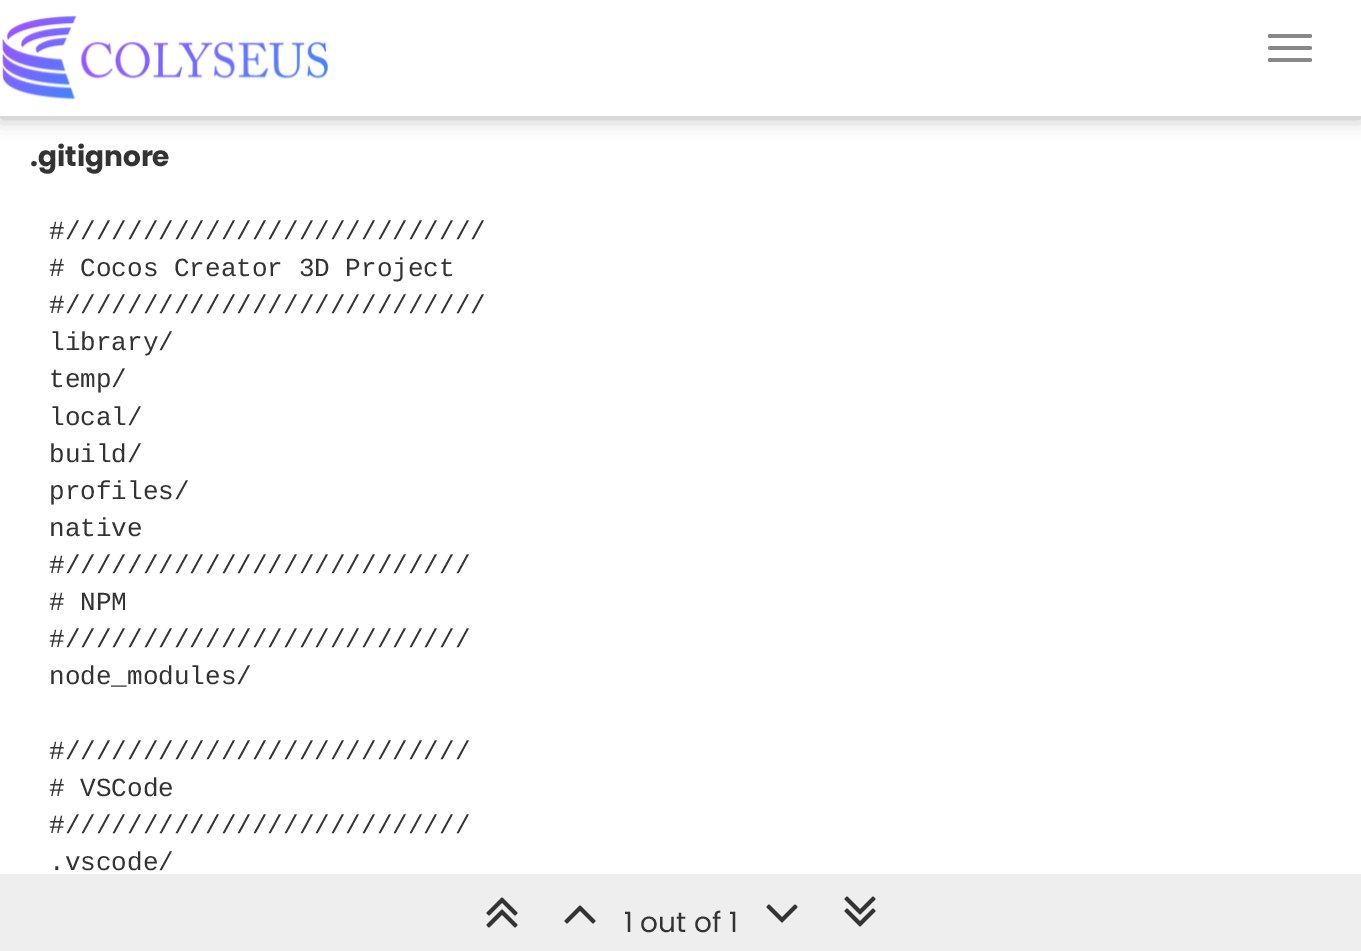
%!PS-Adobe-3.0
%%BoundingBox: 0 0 1361 951
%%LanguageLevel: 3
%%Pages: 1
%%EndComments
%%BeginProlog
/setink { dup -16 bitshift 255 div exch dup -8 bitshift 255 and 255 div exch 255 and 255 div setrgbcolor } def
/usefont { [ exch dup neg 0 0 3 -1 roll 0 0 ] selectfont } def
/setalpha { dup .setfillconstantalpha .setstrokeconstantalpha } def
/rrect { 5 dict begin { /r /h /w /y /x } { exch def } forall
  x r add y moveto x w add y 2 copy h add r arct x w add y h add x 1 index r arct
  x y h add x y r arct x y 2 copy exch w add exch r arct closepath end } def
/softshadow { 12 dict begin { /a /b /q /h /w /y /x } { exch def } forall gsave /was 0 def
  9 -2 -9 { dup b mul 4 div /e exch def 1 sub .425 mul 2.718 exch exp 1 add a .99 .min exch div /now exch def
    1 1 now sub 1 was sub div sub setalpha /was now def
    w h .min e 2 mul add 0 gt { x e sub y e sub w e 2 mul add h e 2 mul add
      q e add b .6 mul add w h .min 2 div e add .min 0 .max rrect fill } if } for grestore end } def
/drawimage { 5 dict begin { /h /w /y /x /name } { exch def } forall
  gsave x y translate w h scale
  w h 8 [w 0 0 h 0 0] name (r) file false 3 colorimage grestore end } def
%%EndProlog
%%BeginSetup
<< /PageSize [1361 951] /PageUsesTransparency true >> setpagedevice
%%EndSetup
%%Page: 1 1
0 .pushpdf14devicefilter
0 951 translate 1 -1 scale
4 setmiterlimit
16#FFFFFF setink
0 0 1361 951 rectfill
16#000000 setink
0 0 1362 118 0 10 0.3 softshadow
16#FFFFFF setink
0 0 1361 116 rectfill
(img1.raw) 2 15 326 85 drawimage
16#888888 setink
1268 34 44 4 2 rrect fill
1268 46 44 4 2 rrect fill
1268 58 44 4 2 rrect fill
/Poppins-Bold 28 usefont
16#333333 setink
30 166 moveto (.gitignore) show
/LiberationMono-Regular 26 usefont
[
    [(#///////////////////////////) 49 239]
    [(# Cocos Creator 3D Project) 49 276]
    [(#///////////////////////////) 49 313]
    [(library/) 49 350]
    [(temp/) 49 387]
    [(local/) 49 425]
    [(build/) 49 462]
    [(profiles/) 49 499]
    [(native) 49 536]
    [(#//////////////////////////) 49 573]
    [(# NPM) 49 610]
    [(#//////////////////////////) 49 647]
    [(node_modules/) 49 684]
    [(#//////////////////////////) 49 759]
    [(# VSCode) 49 796]
    [(#//////////////////////////) 49 833]
    [(.vscode/) 49 870]
] { aload pop moveto show } forall
16#EEEEEE setink
0 874 1361 77 rectfill
(img2.raw) 486 897 32 31 drawimage
(img3.raw) 564 905 32 19 drawimage
/Poppins-Regular 28 usefont
16#333333 setink
624 932 moveto (1 out of 1) show
(img4.raw) 766 904 32 19 drawimage
(img5.raw) 844 896 32 31 drawimage
.poppdf14devicefilter showpage
%%EOF
